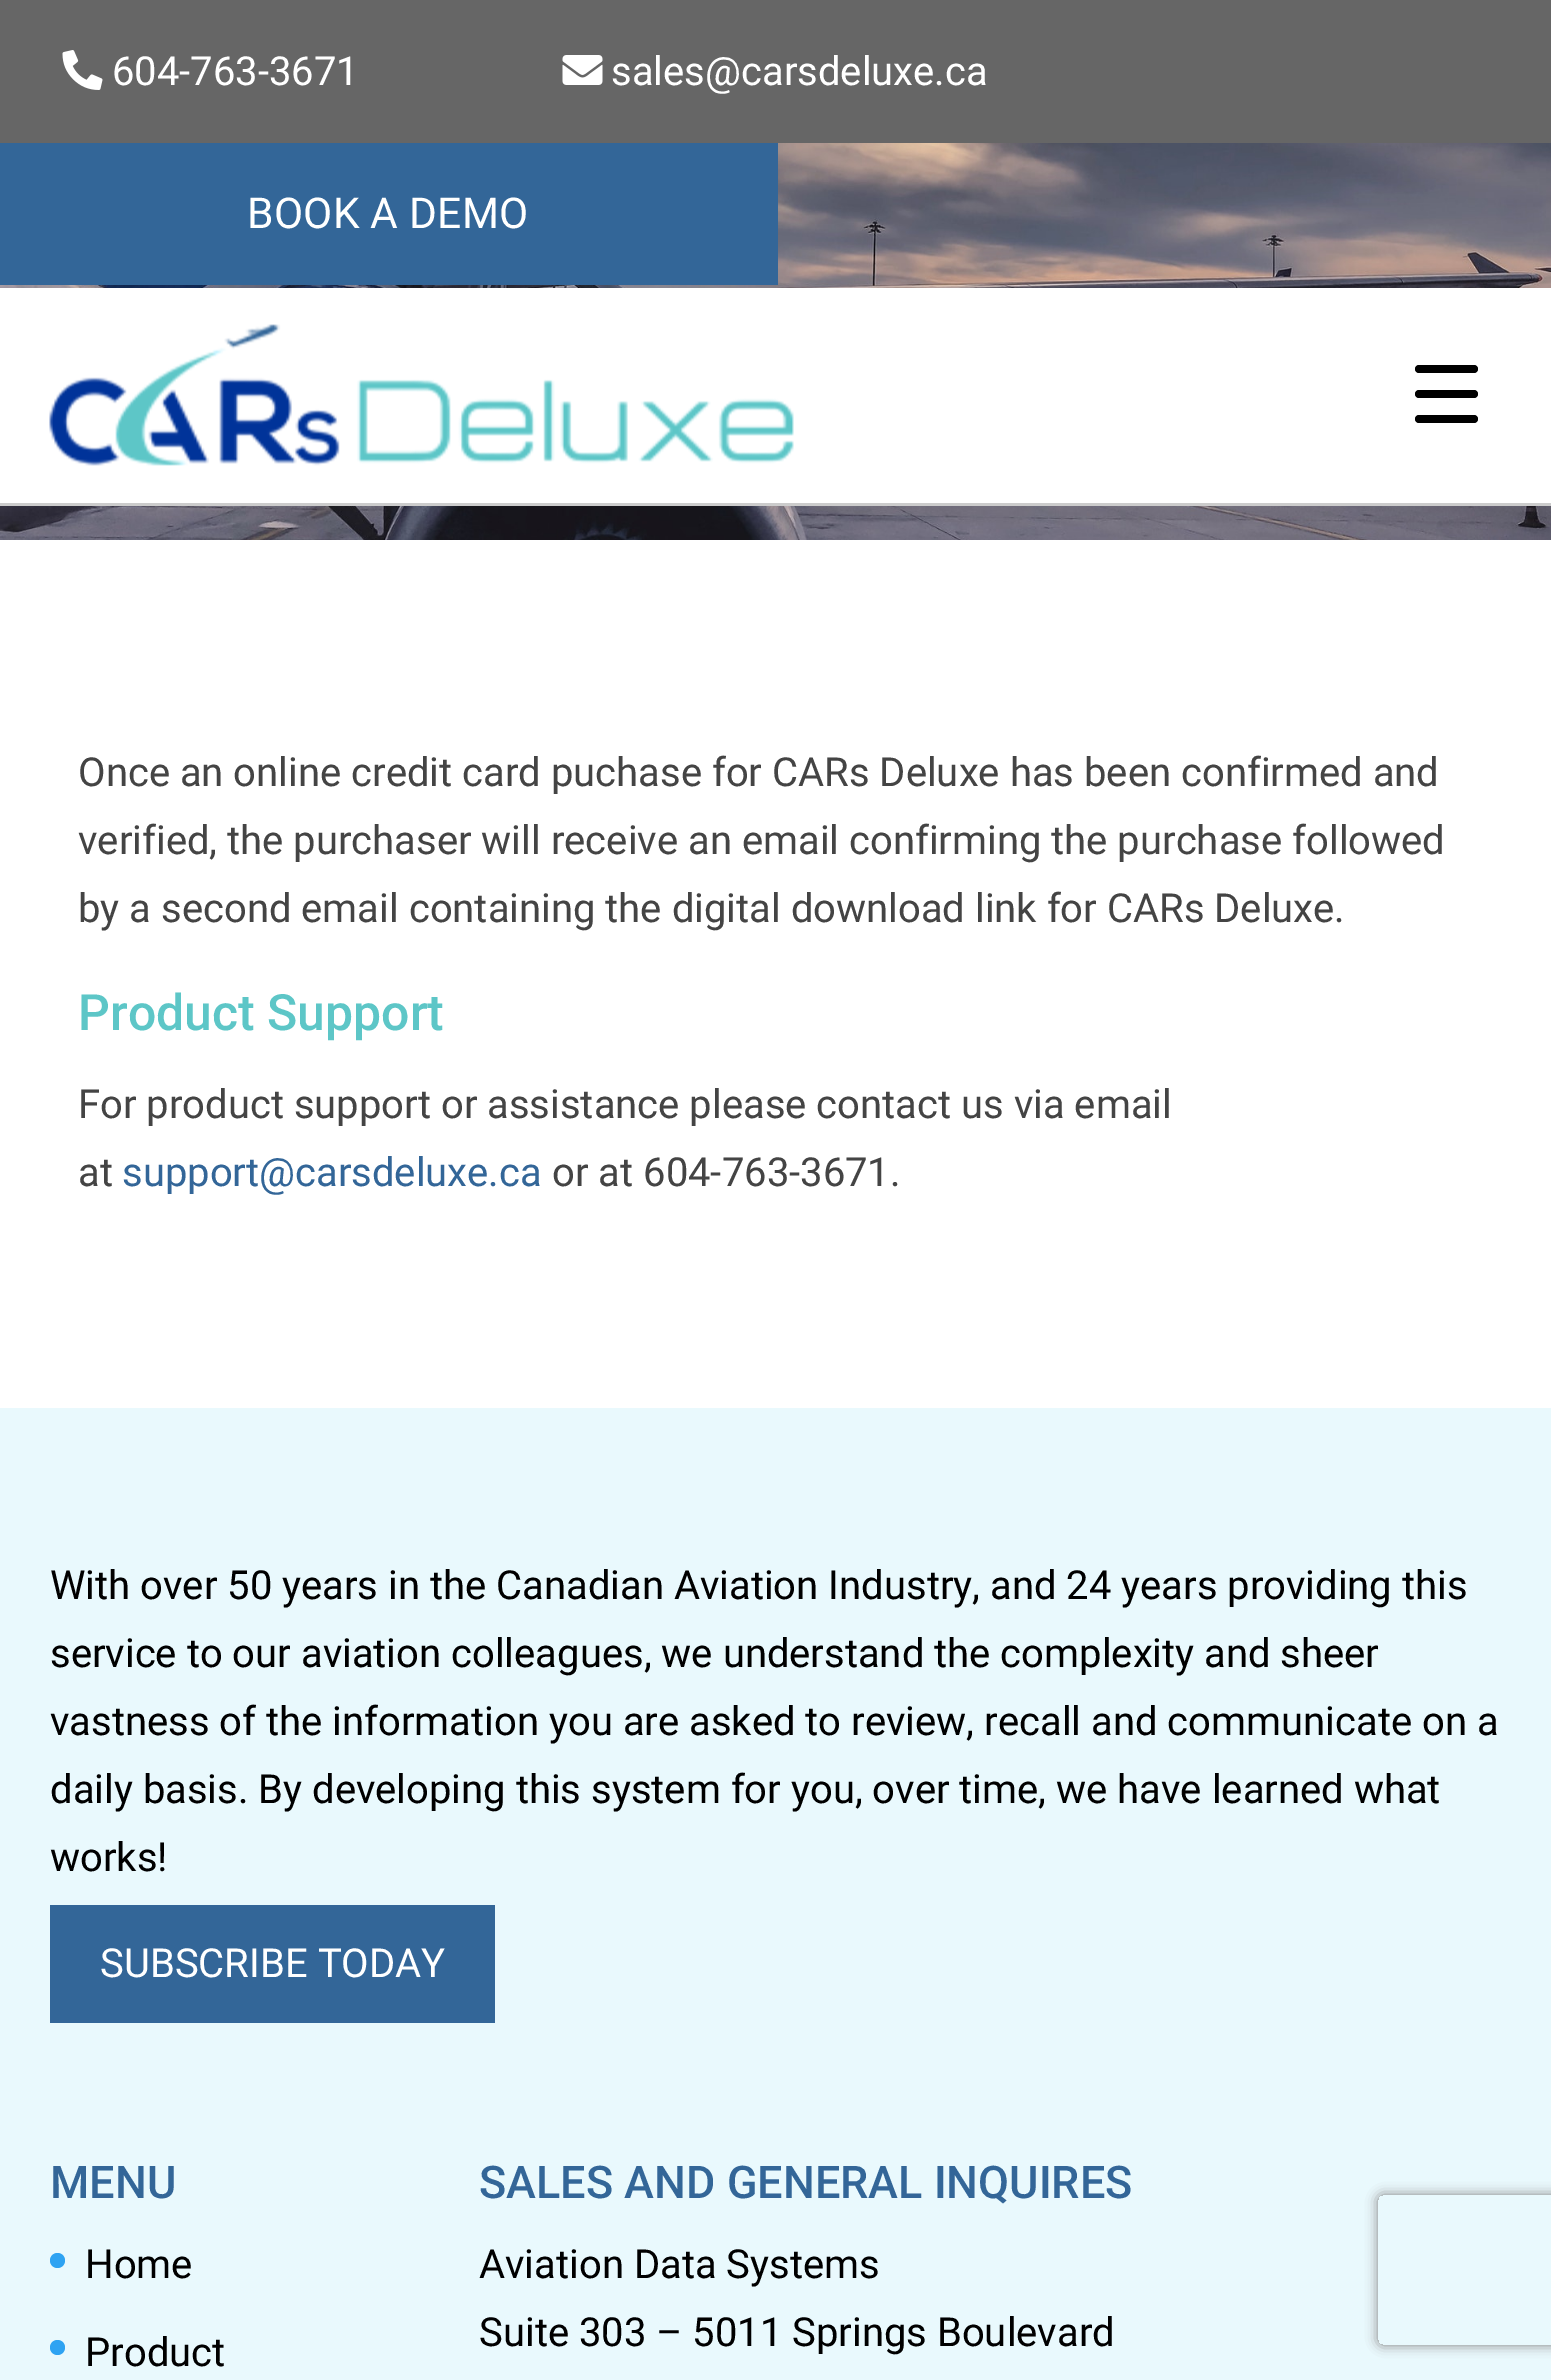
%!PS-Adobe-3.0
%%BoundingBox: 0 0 1551 2380
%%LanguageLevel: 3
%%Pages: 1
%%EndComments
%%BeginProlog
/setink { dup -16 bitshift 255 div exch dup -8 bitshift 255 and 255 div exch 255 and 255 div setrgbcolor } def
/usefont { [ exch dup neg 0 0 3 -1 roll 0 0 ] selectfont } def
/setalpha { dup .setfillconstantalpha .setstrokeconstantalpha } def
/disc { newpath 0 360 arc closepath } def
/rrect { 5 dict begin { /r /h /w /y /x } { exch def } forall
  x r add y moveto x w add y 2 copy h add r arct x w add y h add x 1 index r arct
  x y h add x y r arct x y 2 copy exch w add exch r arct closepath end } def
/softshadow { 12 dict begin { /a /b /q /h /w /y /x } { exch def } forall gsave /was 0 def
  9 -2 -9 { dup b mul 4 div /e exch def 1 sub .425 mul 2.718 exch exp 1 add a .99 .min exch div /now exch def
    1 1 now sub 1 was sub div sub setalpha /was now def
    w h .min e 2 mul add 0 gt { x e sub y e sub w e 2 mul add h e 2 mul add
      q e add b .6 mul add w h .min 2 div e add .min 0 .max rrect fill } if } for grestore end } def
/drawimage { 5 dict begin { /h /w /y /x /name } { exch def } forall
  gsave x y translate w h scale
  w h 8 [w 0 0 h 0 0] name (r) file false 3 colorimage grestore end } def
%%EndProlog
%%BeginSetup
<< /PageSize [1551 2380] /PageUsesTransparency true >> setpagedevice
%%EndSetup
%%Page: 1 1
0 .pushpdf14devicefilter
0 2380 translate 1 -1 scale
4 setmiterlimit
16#FFFFFF setink
0 0 1551 2380 rectfill
(img4.raw) 0 143 1551 397 drawimage
16#CCCCCC setink
0 503 1551 3 rectfill
16#666666 setink
0 0 1551 143 rectfill
(img1.raw) 62 50 41 40 drawimage
/Roboto-Regular 40 usefont
16#FFFFFF setink
112 85 moveto (604-763-3671) show
(img2.raw) 562 55 41 30 drawimage
611 85 moveto (sales@carsdeluxe.ca) show
16#336698 setink
0 143 778 142 rectfill
/Roboto-Regular 42.5 usefont
16#FFFFFF setink
247 228 moveto 0.25 0 (BOOK A DEMO) ashow
0 288 1551 215 rectfill
(img3.raw) 49 324 745 142 drawimage
16#000000 setink
1415 390 63 8 4 rrect fill
1415 365 63 8 4 rrect fill
1415 415 63 8 4 rrect fill
/Roboto-Regular 40 usefont
16#444444 setink
[
    [(Once an online credit card puchase for CARs Deluxe has been confirmed and) 78 786]
    [(verified, the purchaser will receive an email confirming the purchase followed) 78 854]
    [(by a second email containing the digital download link for CARs Deluxe.) 78 922]
] { aload pop moveto show } forall
/Roboto-Medium 50 usefont
16#5DC6C7 setink
78 1030 moveto (Product Support) show
/Roboto-Regular 40 usefont
16#444444 setink
78 1118 moveto (For product support or assistance please contact us via email) show
78 1186 moveto (at) show
16#336698 setink
122 1186 moveto (support@carsdeluxe.ca) show
16#444444 setink
552 1186 moveto (or at 604-763-3671.) show
16#E9F9FD setink
0 1408 1551 972 rectfill
16#000000 setink
[
    [(With over 50 years in the Canadian Aviation Industry, and 24 years providing this) 50 1599]
    [(service to our aviation colleagues, we understand the complexity and sheer) 50 1667]
    [(vastness of the information you are asked to review, recall and communicate on a) 50 1735]
    [(daily basis. By developing this system for you, over time, we have learned what) 50 1803]
    [(works!) 50 1871]
] { aload pop moveto show } forall
16#336698 setink
50 1905 445 118 rectfill
16#FFFFFF setink
100 1977 moveto (SUBSCRIBE TODAY) show
/Roboto-Medium 45 usefont
16#336698 setink
50 2198 moveto (MENU) show
16#2EA3F2 setink
57.5 2260.5 7.5 disc fill
/Roboto-Regular 40 usefont
16#000000 setink
85 2278 moveto (Home) show
16#2EA3F2 setink
57.5 2347.5 7.5 disc fill
16#000000 setink
85 2366 moveto (Product) show
/Roboto-Medium 45 usefont
16#336698 setink
479 2198 moveto (SALES AND GENERAL INQUIRES) show
/Roboto-Regular 40 usefont
16#000000 setink
479 2278 moveto (Aviation Data Systems) show
479 2346 moveto (Suite 303 – 5011 Springs Boulevard) show
gsave
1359 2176 moveto 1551 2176 lineto 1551 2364 lineto 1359 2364 lineto closepath 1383 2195 moveto 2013 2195 lineto 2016 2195 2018 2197 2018 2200 curveto 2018 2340 lineto 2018 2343 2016 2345 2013 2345 curveto 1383 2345 lineto 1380 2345 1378 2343 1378 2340 curveto 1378 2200 lineto 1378 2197 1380 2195 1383 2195 curveto closepath eoclip newpath
16#808080 setink
1378 2195 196 150 5 6 1 softshadow
grestore
.poppdf14devicefilter showpage
%%EOF
